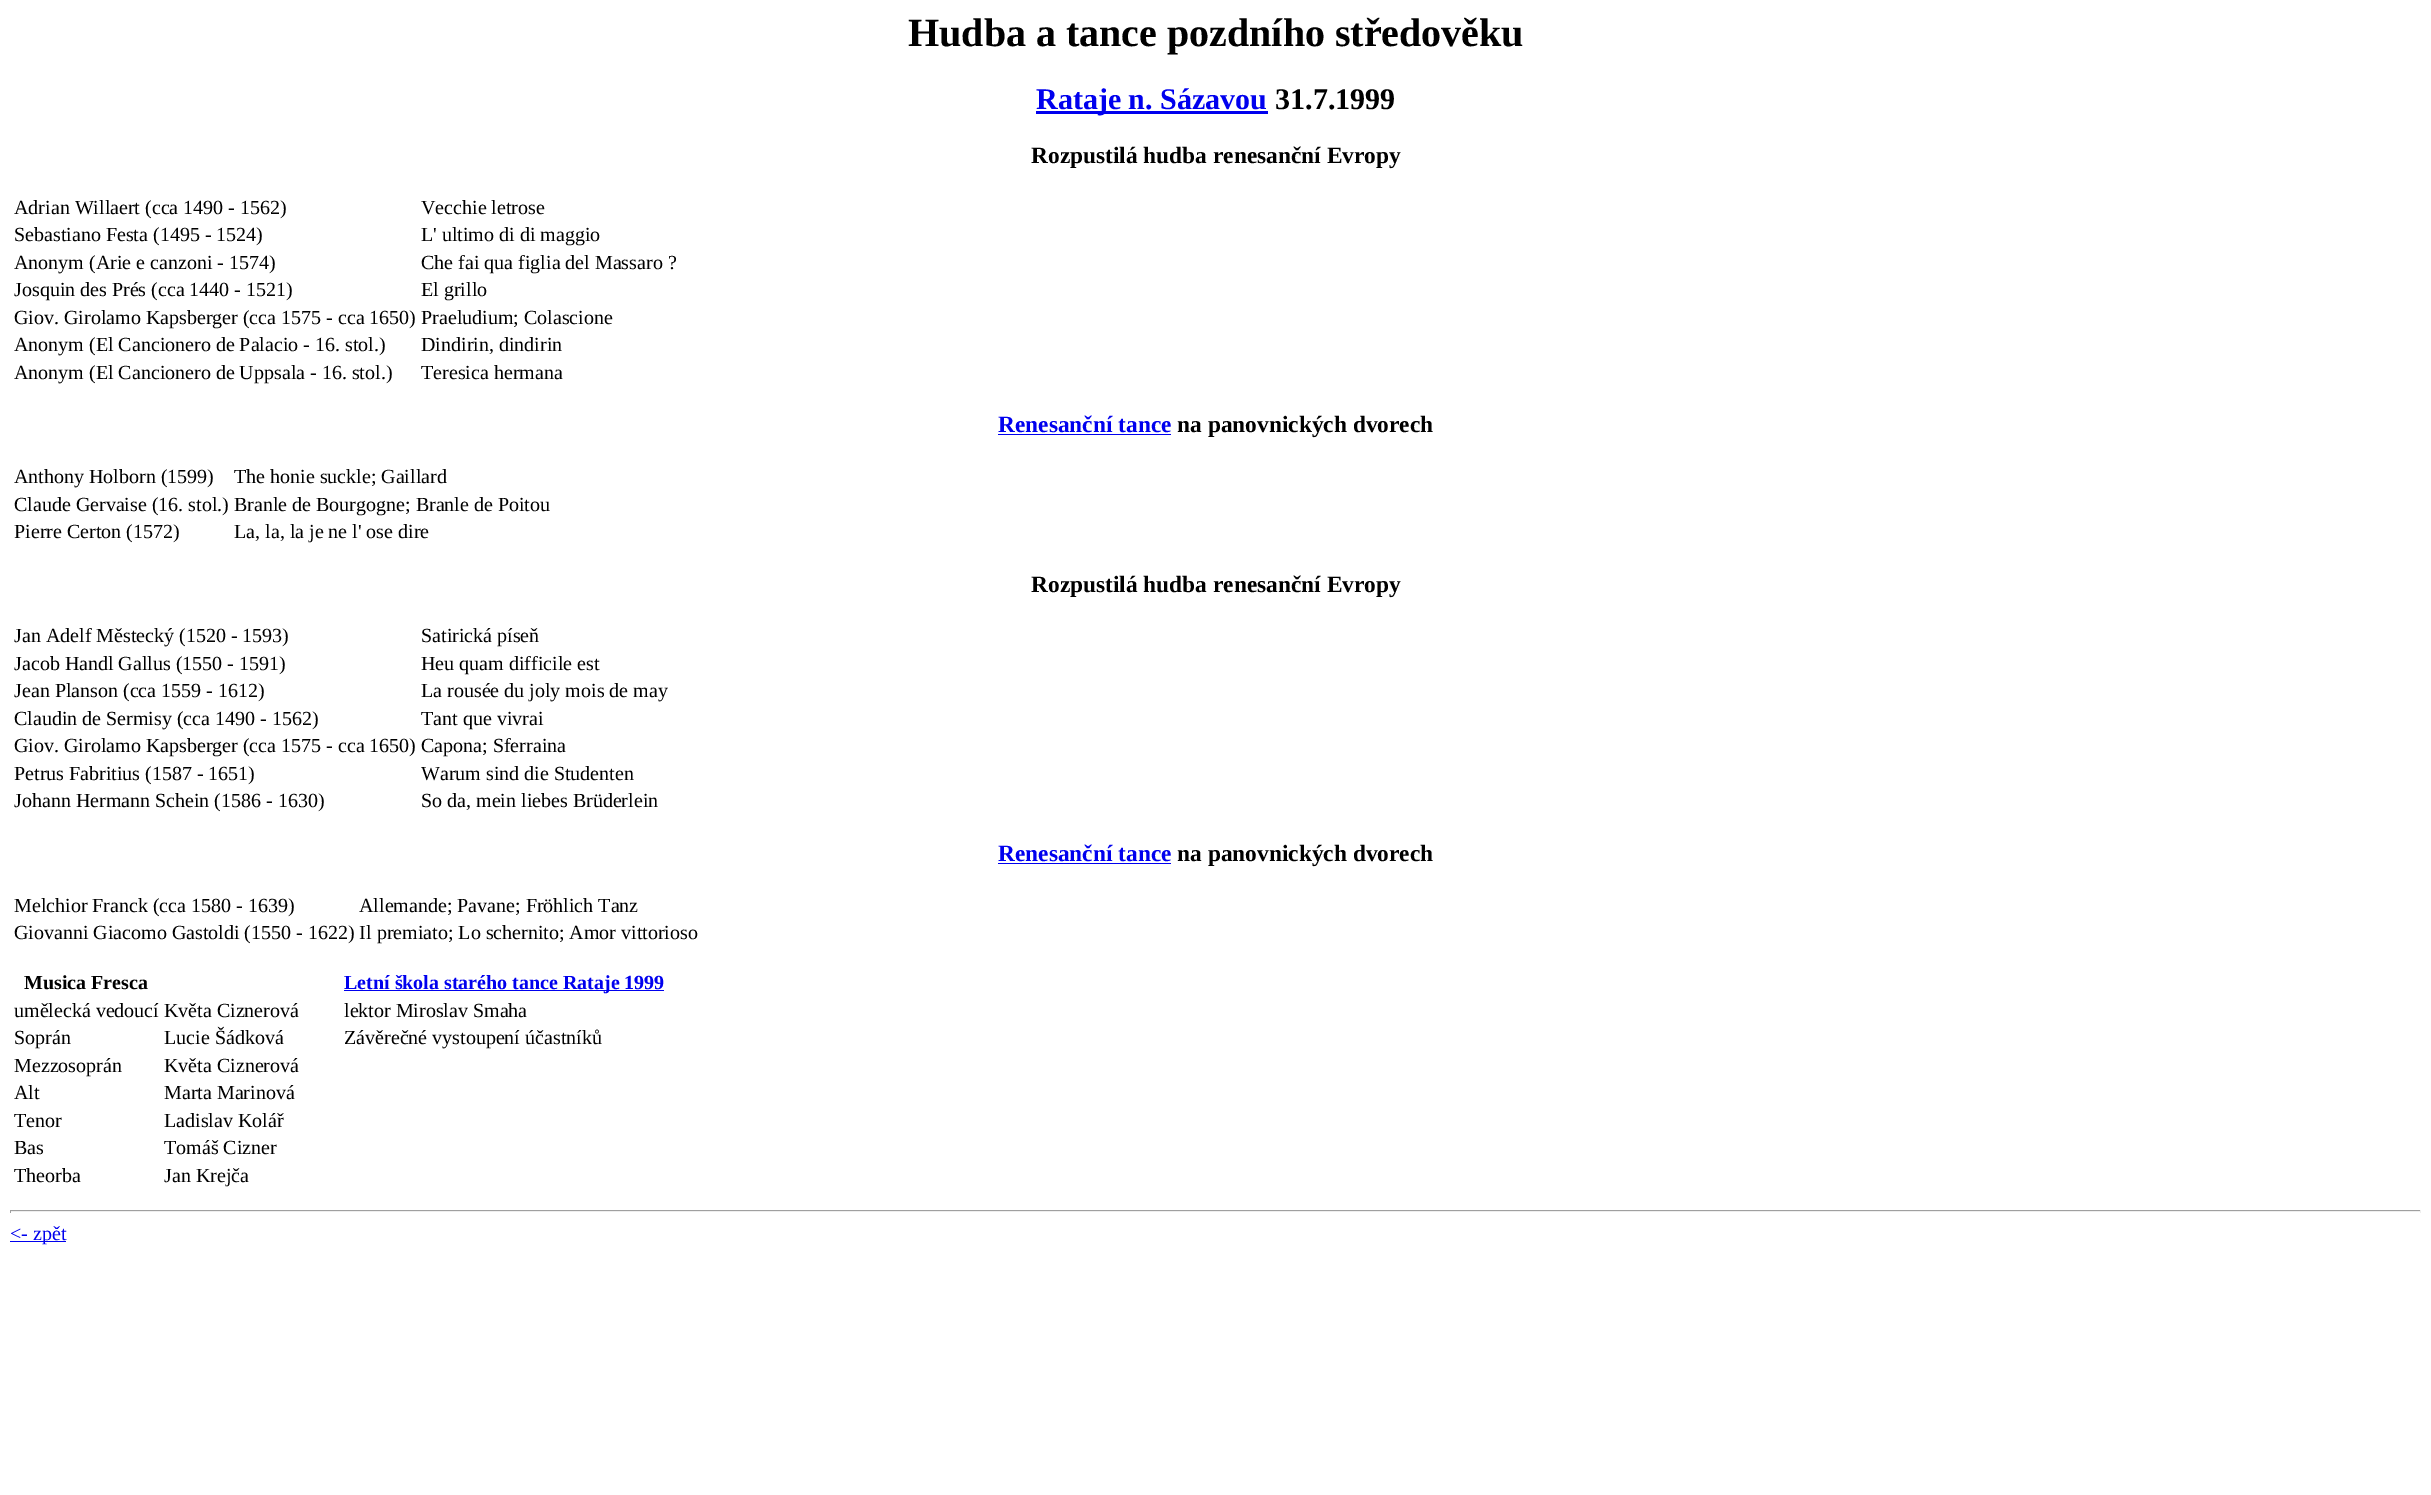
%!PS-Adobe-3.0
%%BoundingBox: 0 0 2431 1495
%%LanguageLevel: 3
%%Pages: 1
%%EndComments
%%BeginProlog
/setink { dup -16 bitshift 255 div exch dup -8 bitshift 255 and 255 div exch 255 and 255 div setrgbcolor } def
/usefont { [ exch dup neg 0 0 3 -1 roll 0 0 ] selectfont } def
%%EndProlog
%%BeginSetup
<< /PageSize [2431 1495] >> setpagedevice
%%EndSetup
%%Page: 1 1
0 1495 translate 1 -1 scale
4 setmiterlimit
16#FFFFFF setink
0 0 2431 1495 rectfill
/LiberationSerif-Bold 40 usefont
16#000000 setink
908 46 moveto (Hudba a tance pozdního středověku) show
16#0000EE setink
1036 111 232 3 rectfill
/LiberationSerif-Bold 30 usefont
1036 109 moveto (Rataje n. Sázavou) show
16#000000 setink
1275 109 moveto (31.7.1999) show
/LiberationSerif-Bold 23.4 usefont
1031 163 moveto (Rozpustilá hudba renesanční Evropy) show
/LiberationSerif-Regular 20 usefont
[
    [(Adrian Willaert \(cca 1490 - 1562\)) 14 214]
    [(Vecchie letrose) 421 214]
    [(Sebastiano Festa \(1495 - 1524\)) 14 241]
    [(L' ultimo di di maggio) 421 241]
    [(Anonym \(Arie e canzoni - 1574\)) 14 269]
    [(Che fai qua figlia del Massaro ?) 421 269]
    [(Josquin des Prés \(cca 1440 - 1521\)) 14 296]
    [(El grillo) 421 296]
    [(Giov. Girolamo Kapsberger \(cca 1575 - cca 1650\) Praeludium; Colascione) 14 324]
    [(Anonym \(El Cancionero de Palacio - 16. stol.\)) 14 351]
    [(Dindirin, dindirin) 421 351]
    [(Anonym \(El Cancionero de Uppsala - 16. stol.\)) 14 379]
    [(Teresica hermana) 421 379]
] { aload pop moveto show } forall
/LiberationSerif-Bold 23.4 usefont
16#0000EE setink
998 432 moveto (Renesanční tance) show
998 434 173 1 rectfill
16#000000 setink
1177 432 moveto (na panovnických dvorech) show
/LiberationSerif-Regular 20 usefont
[
    [(Anthony Holborn \(1599\)) 14 483]
    [(The honie suckle; Gaillard) 234 483]
    [(Claude Gervaise \(16. stol.\) Branle de Bourgogne; Branle de Poitou) 14 511]
    [(Pierre Certon \(1572\)) 14 538]
    [(La, la, la je ne l' ose dire) 234 538]
] { aload pop moveto show } forall
/LiberationSerif-Bold 23.4 usefont
1031 592 moveto (Rozpustilá hudba renesanční Evropy) show
/LiberationSerif-Regular 20 usefont
[
    [(Jan Adelf Městecký \(1520 - 1593\)) 14 642]
    [(Satirická píseň) 421 642]
    [(Jacob Handl Gallus \(1550 - 1591\)) 14 670]
    [(Heu quam difficile est) 421 670]
    [(Jean Planson \(cca 1559 - 1612\)) 14 697]
    [(La rousée du joly mois de may) 421 697]
    [(Claudin de Sermisy \(cca 1490 - 1562\)) 14 725]
    [(Tant que vivrai) 421 725]
    [(Giov. Girolamo Kapsberger \(cca 1575 - cca 1650\) Capona; Sferraina) 14 752]
    [(Petrus Fabritius \(1587 - 1651\)) 14 780]
    [(Warum sind die Studenten) 421 780]
    [(Johann Hermann Schein \(1586 - 1630\)) 14 807]
    [(So da, mein liebes Brüderlein) 421 807]
] { aload pop moveto show } forall
/LiberationSerif-Bold 23.4 usefont
16#0000EE setink
998 861 moveto (Renesanční tance) show
998 863 173 1 rectfill
16#000000 setink
1177 861 moveto (na panovnických dvorech) show
/LiberationSerif-Regular 20 usefont
[
    [(Melchior Franck \(cca 1580 - 1639\)) 14 912]
    [(Allemande; Pavane; Fröhlich Tanz) 359 912]
    [(Giovanni Giacomo Gastoldi \(1550 - 1622\) Il premiato; Lo schernito; Amor vittorioso) 14 939]
] { aload pop moveto show } forall
/LiberationSerif-Bold 20 usefont
24 989 moveto (Musica Fresca) show
16#0000EE setink
344 990 320 1 rectfill
344 989 moveto (Letní škola starého tance Rataje 1999) show
/LiberationSerif-Regular 20 usefont
16#000000 setink
[
    [(umělecká vedoucí Květa Ciznerová) 14 1017]
    [(lektor Miroslav Smaha) 344 1017]
    [(Soprán) 14 1044]
    [(Lucie Šádková) 164 1044]
    [(Závěrečné vystoupení účastníků) 344 1044]
    [(Mezzosoprán) 14 1072]
    [(Květa Ciznerová) 164 1072]
    [(Alt) 14 1099]
    [(Marta Marinová) 164 1099]
    [(Tenor) 14 1127]
    [(Ladislav Kolář) 164 1127]
    [(Bas) 14 1154]
    [(Tomáš Cizner) 164 1154]
    [(Theorba) 14 1182]
    [(Jan Krejča) 164 1182]
] { aload pop moveto show } forall
[
    [10 1210 2411 1 16#9F9F9F]
    [2420 1210 1 3 16#EEEEEE]
    [10 1211 2411 1 16#EEEEEE]
    [10 1210 1 3 16#9F9F9F]
    [10 1241 56 1 16#0000EE]
] { aload pop setink rectfill } forall
10 1240 moveto (<- zpět) show
showpage
%%EOF
